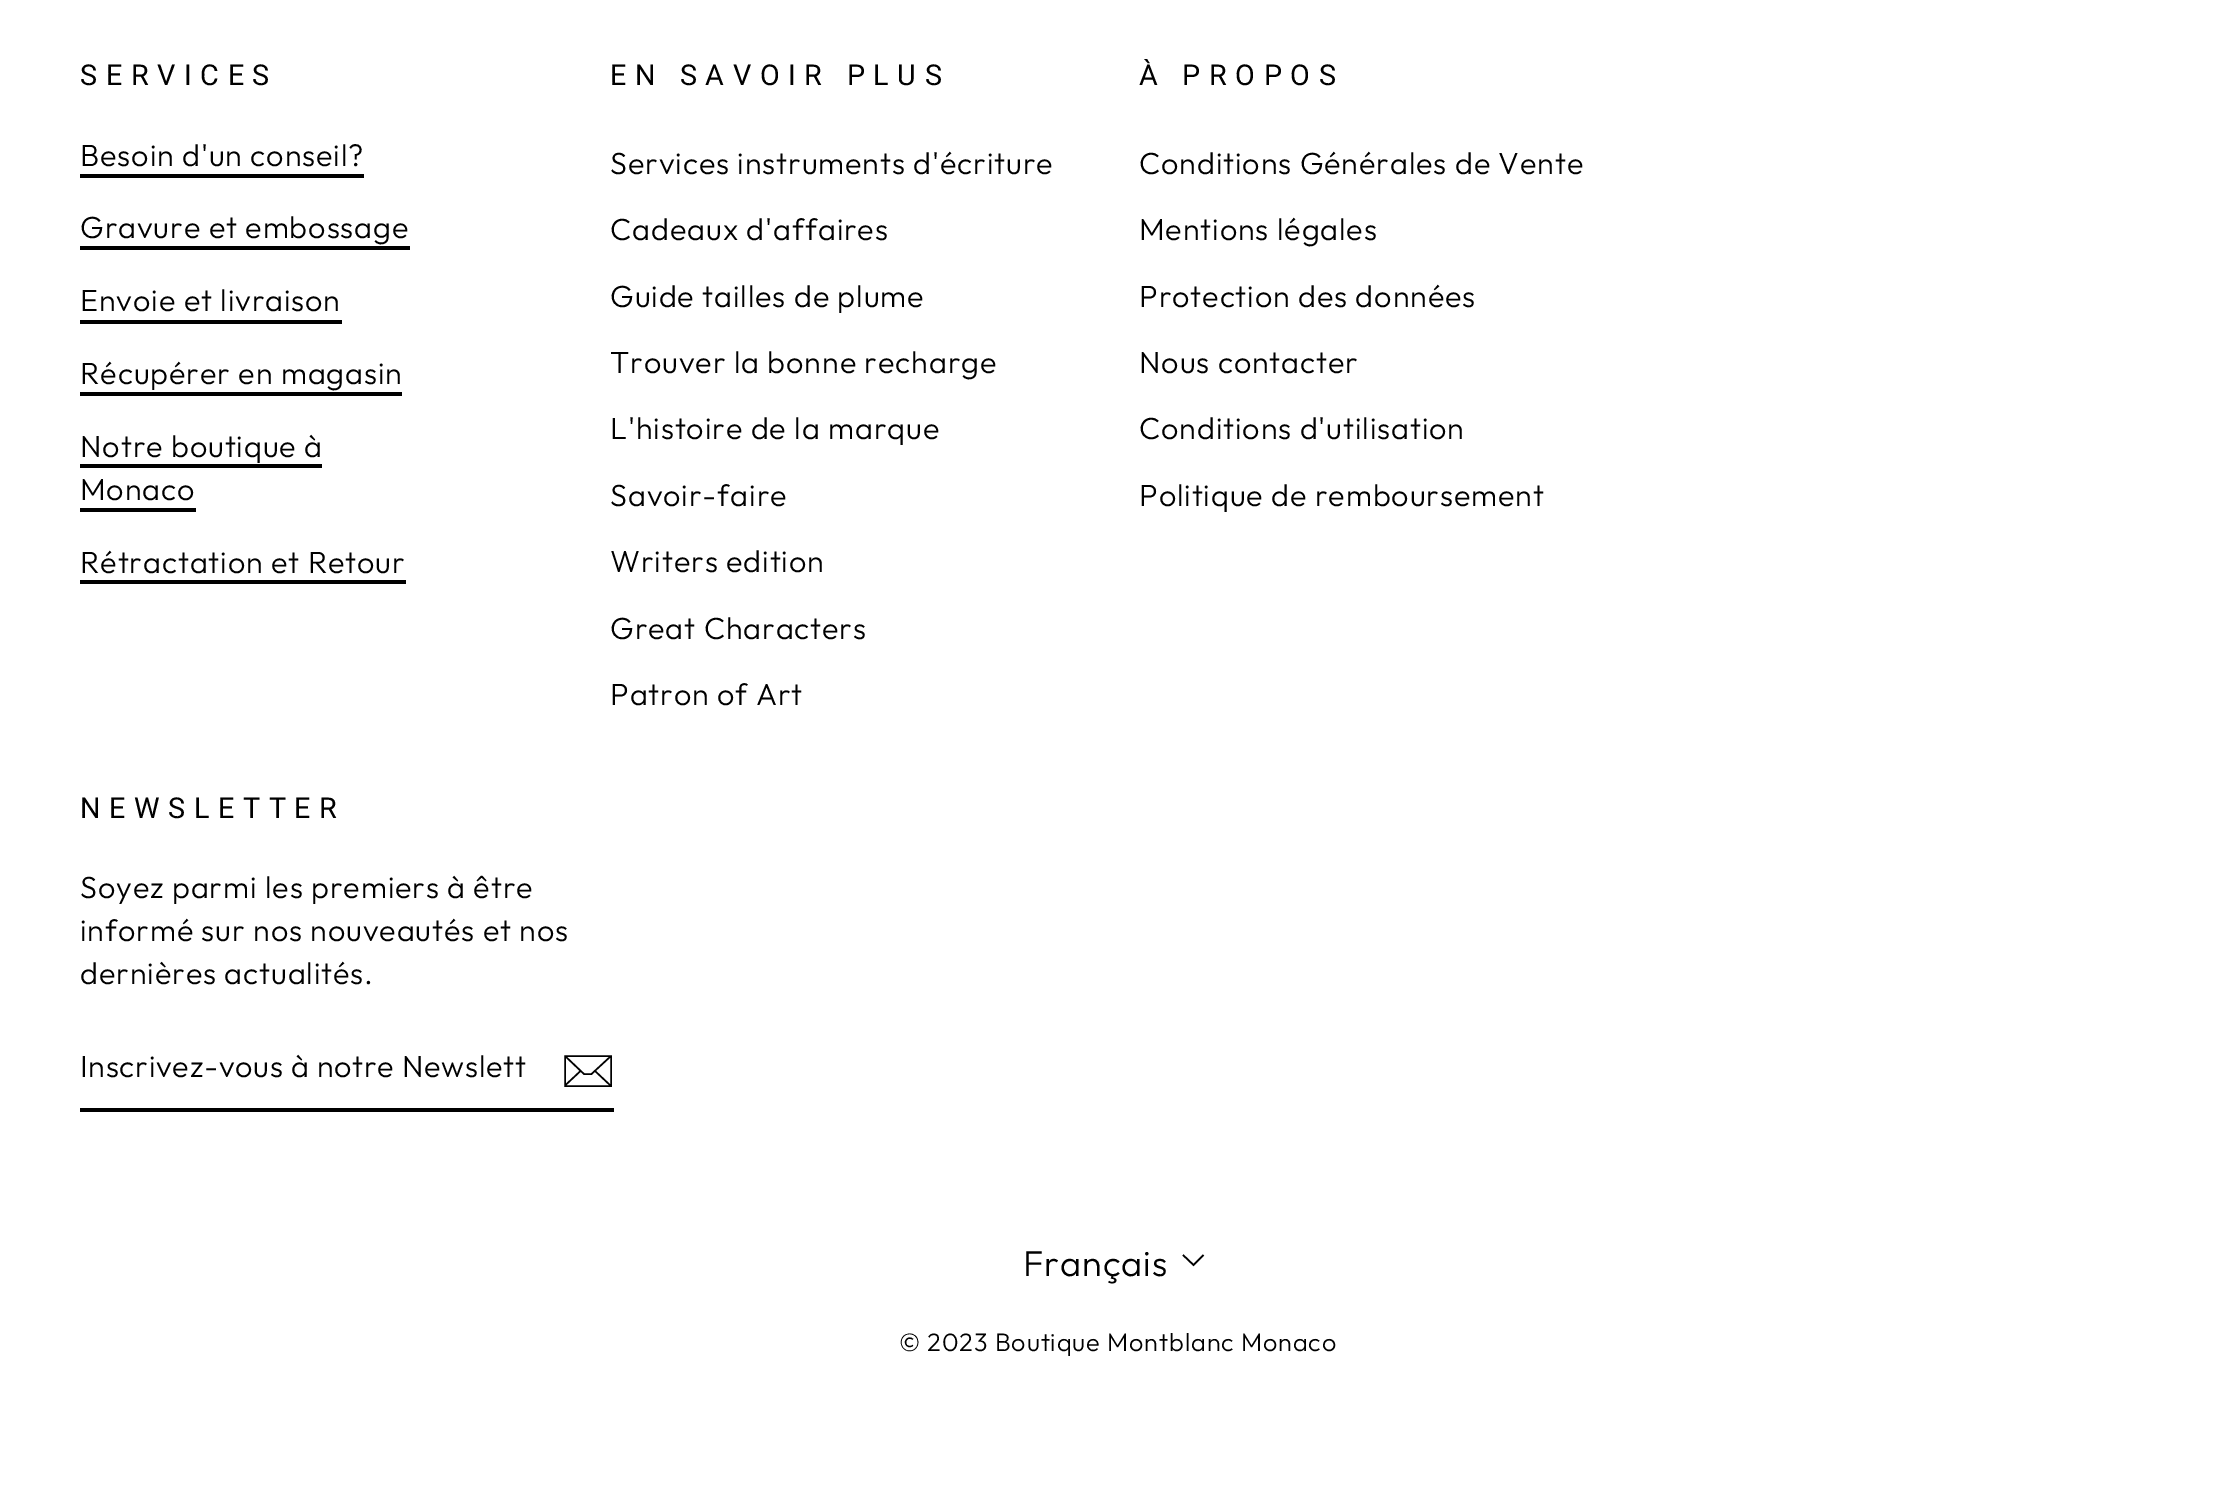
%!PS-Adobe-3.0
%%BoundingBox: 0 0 2234 1496
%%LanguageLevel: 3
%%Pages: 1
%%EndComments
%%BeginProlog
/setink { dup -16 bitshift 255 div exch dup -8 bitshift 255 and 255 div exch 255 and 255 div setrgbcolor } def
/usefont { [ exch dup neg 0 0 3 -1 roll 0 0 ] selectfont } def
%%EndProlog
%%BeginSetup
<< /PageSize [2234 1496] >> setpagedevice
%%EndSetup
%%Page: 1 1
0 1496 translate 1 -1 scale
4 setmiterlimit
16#FFFFFF setink
0 0 2234 1496 rectfill
/Roboto-Regular 28.75 usefont
16#000000 setink
80 85 moveto 8.6 0 (SERVICES) ashow
/Outfit-Light 30.6 usefont
80 166 moveto 0.9 0 (Besoin d'un conseil?) ashow
80 174 284 4 rectfill
80 238 moveto 0.9 0 (Gravure et embossage) ashow
80 246 330 4 rectfill
80 311 moveto 0.9 0 (Envoie et livraison) ashow
80 320 262 4 rectfill
80 384 moveto 0.9 0 (Récupérer en magasin) ashow
80 392 322 4 rectfill
80 457 moveto 0.9 0 (Notre boutique à) ashow
80 464 242 4 rectfill
80 500 moveto 0.9 0 (Monaco) ashow
80 508 116 4 rectfill
80 573 moveto 0.9 0 (Rétractation et Retour) ashow
80 580 326 4 rectfill
/Roboto-Regular 28.75 usefont
610 85 moveto 8.6 0 (EN SAVOIR PLUS) ashow
/Outfit-Light 30.6 usefont
610 174 moveto 0.9 0 (Services instruments d'écriture) ashow
610 240 moveto 0.9 0 (Cadeaux d'affaires) ashow
610 307 moveto 0.9 0 (Guide tailles de plume) ashow
610 373 moveto 0.9 0 (Trouver la bonne recharge) ashow
610 439 moveto 0.9 0 (L'histoire de la marque) ashow
610 506 moveto 0.9 0 (Savoir-faire) ashow
610 572 moveto 0.9 0 (Writers edition) ashow
610 639 moveto 0.9 0 (Great Characters) ashow
610 705 moveto 0.9 0 (Patron of Art) ashow
/Roboto-Regular 28.75 usefont
1139 85 moveto 8.6 0 (À PROPOS) ashow
/Outfit-Light 30.6 usefont
1139 174 moveto 0.9 0 (Conditions Générales de Vente) ashow
1139 240 moveto 0.9 0 (Mentions légales) ashow
1139 307 moveto 0.9 0 (Protection des données) ashow
1139 373 moveto 0.9 0 (Nous contacter) ashow
1139 439 moveto 0.9 0 (Conditions d'utilisation) ashow
1139 506 moveto 0.9 0 (Politique de remboursement) ashow
/Roboto-Regular 28.75 usefont
80 818 moveto 8.6 0 (NEWSLETTER) ashow
/Outfit-Light 30.6 usefont
80 898 moveto 0.9 0 (Soyez parmi les premiers à être) ashow
80 941 moveto 0.9 0 (informé sur nos nouveautés et nos) ashow
80 984 moveto 0.9 0 (dernières actualités.) ashow
80 1108 534 4 rectfill
80 1077 moveto 0.75 0 (Inscrivez-vous à notre Newslett) ashow
1.5 setlinewidth
611 1086 moveto 565 1086 lineto 565 1056 lineto 611 1056 lineto closepath 565 1056 moveto 584 1074 lineto 591.5 1074 lineto 611 1056 lineto 580.5 1071 moveto 565 1085.5 lineto 611 1086 moveto 595 1071 lineto stroke
/Outfit-Light 36 usefont
1023 1276 moveto 0.9 0 (Français) ashow
1.6 setlinewidth
1183 1255 moveto 1193.5 1265 lineto 1203.5 1255 lineto stroke
/Outfit-Light 25.25 usefont
899 1351 moveto 0.9 0 (© 2023 Boutique Montblanc Monaco) ashow
showpage
%%EOF
